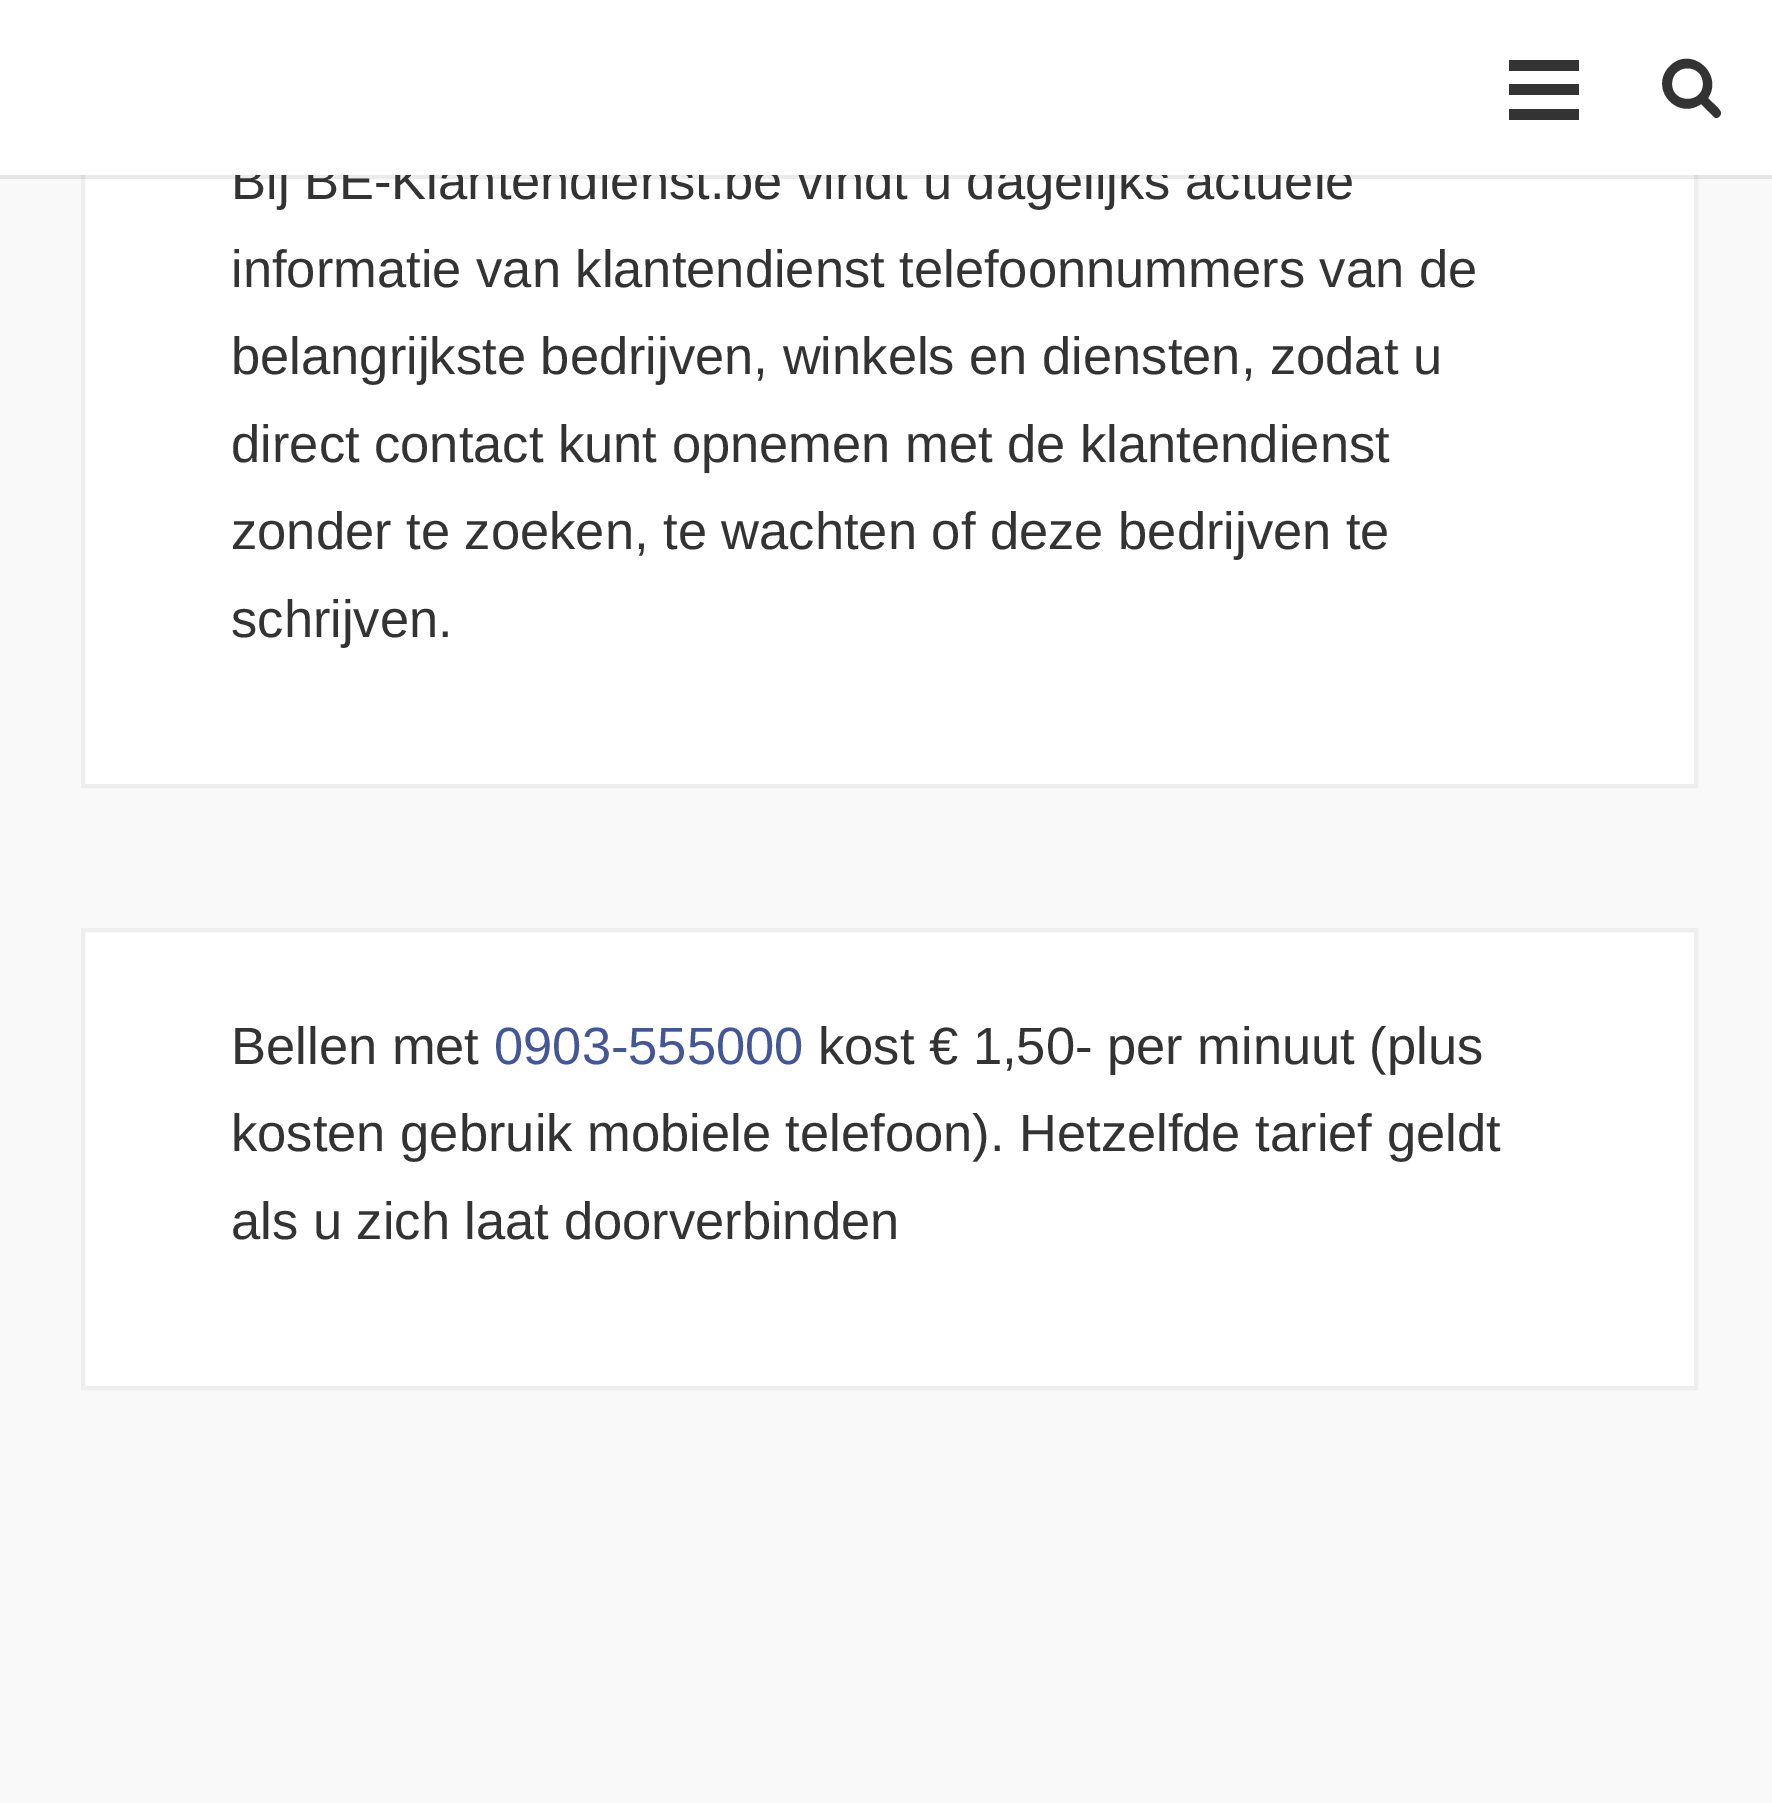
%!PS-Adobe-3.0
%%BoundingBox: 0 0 1772 1803
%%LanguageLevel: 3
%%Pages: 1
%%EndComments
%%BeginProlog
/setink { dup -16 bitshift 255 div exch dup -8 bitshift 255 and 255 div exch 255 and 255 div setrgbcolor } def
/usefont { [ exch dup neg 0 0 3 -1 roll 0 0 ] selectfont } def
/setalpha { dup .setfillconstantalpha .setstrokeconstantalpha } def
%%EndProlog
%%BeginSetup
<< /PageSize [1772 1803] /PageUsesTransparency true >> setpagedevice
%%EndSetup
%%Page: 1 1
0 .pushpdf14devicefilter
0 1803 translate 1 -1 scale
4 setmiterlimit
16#F9F9F9 setink
0 0 1772 1803 rectfill
16#FFFFFF setink
85 175 1609 609 rectfill
16#EEEEEE setink
4 setlinewidth
83 65 1613 721 rectstroke
0.08 setalpha
16#000000 setink
0 175 moveto 0 179 lineto 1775 179 lineto 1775 4 lineto 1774 4 lineto 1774 175 lineto closepath fill
/LiberationSans-Regular 52.5 usefont
1 setalpha
16#333333 setink
231 199 moveto (Bij BE-Klantendienst.be vindt u dagelijks actuele) show
[
    [0 0 1772 175 16#FFFFFF]
    [1509 84 70 11 16#333333]
    [1509 60 70 11 16#333333]
    [1509 109 70 11 16#333333]
] { aload pop setink rectfill } forall
1703 84 moveto 1703 104 1672 104 1672 84 curveto 1672 63 1703 63 1703 84 curveto closepath 1721 113 moveto 1721 109 1710 101 1708 98 curveto 1724 74 1691 45 1670 66 curveto 1648 88 1677 121 1701 104 curveto 1713 116 lineto 1714 117 1715 118 1716 118 curveto 1719 118 1721 115 1721 113 curveto closepath fill
[
    [(informatie van klantendienst telefoonnummers van de) 231 287]
    [(belangrijkste bedrijven, winkels en diensten, zodat u) 231 374]
    [(direct contact kunt opnemen met de klantendienst) 231 462]
    [(zonder te zoeken, te wachten of deze bedrijven te) 231 549]
    [(schrijven.) 231 637]
] { aload pop moveto show } forall
16#FFFFFF setink
83 930 moveto 1696 930 lineto 1696 1388 lineto 83 1388 lineto closepath gsave fill grestore
16#EEEEEE setink
stroke
16#333333 setink
231 1064 moveto (Bellen met) show
16#43569A setink
494 1064 moveto (0903-555000) show
16#333333 setink
[
    [(kost € 1,50- per minuut \(plus) 818 1064]
    [(kosten gebruik mobiele telefoon\). Hetzelfde tarief geldt) 231 1151]
    [(als u zich laat doorverbinden) 231 1239]
] { aload pop moveto show } forall
.poppdf14devicefilter showpage
%%EOF
